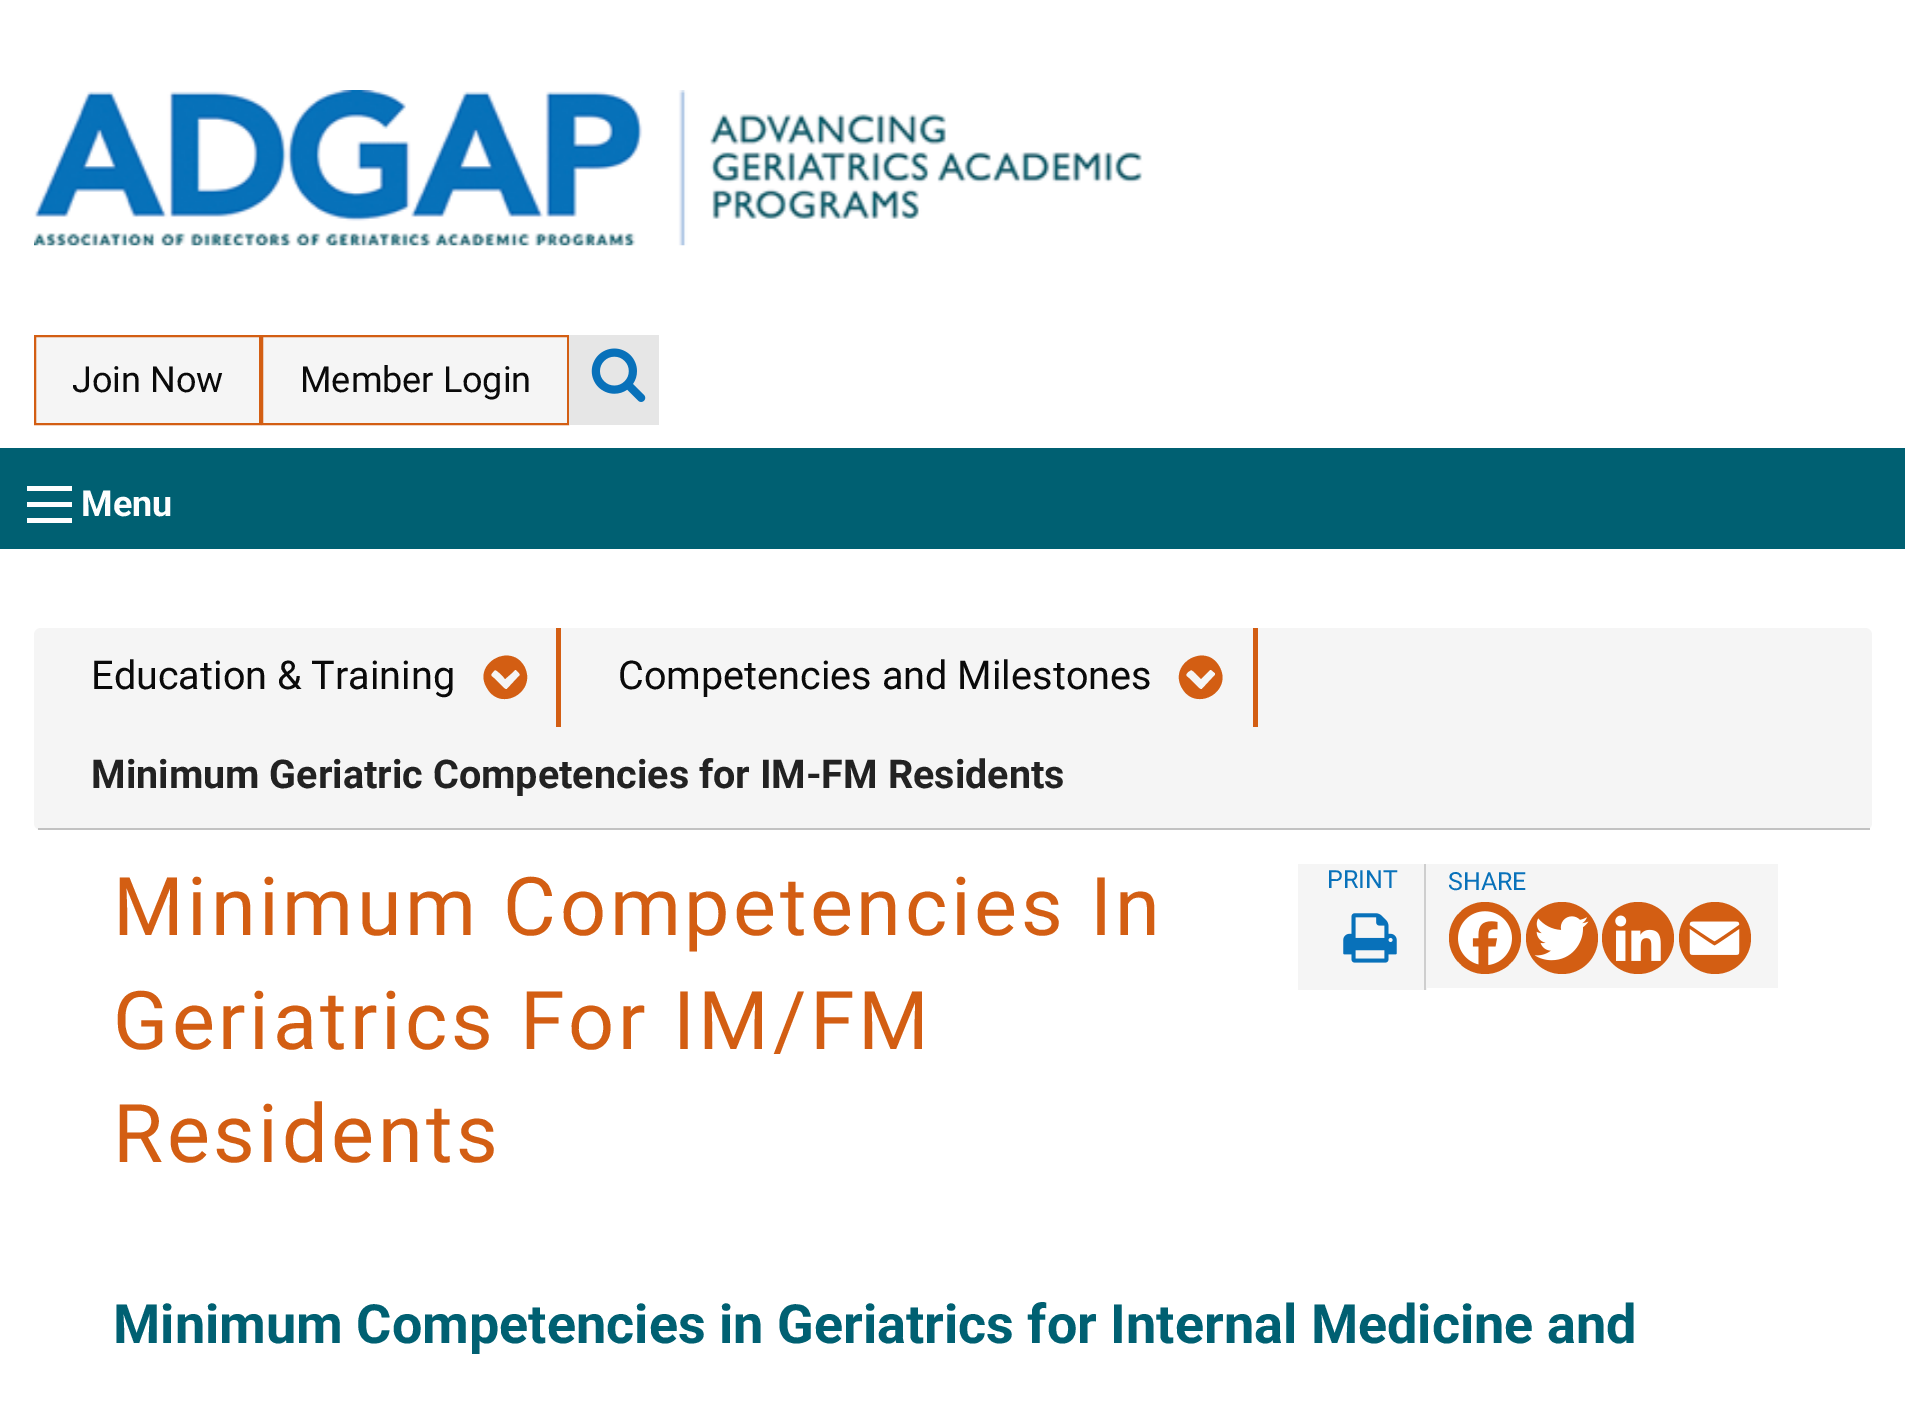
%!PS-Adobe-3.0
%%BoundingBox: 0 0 1905 1403
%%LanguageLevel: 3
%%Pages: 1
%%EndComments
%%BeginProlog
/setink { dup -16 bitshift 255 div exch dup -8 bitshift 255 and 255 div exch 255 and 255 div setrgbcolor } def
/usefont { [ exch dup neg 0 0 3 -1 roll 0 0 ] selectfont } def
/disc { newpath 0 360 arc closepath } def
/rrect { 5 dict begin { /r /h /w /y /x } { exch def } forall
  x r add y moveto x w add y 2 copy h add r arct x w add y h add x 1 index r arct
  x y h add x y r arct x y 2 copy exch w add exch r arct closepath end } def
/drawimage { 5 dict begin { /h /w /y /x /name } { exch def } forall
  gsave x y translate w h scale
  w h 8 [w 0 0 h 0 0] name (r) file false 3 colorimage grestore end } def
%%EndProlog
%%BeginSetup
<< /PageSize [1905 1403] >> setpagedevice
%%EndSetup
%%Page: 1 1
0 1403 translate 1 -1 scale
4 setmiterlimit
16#FFFFFF setink
0 0 1905 1403 rectfill
(img1.raw) 34 90 1109 156 drawimage
16#F5F5F5 setink
35 336 moveto 260 336 lineto 260 424 lineto 35 424 lineto closepath gsave fill grestore
16#D35E13 setink
2 setlinewidth
stroke
/Roboto-Regular 36 usefont
16#0A0A0A setink
72 392 moveto (Join Now) show
16#F5F5F5 setink
262 336 moveto 568 336 lineto 568 424 lineto 262 424 lineto closepath gsave fill grestore
16#D35E13 setink
stroke
16#0A0A0A setink
300 392 moveto (Member Login) show
16#E6E6E6 setink
569 335 90 90 rectfill
(img2.raw) 591 348 55 54 drawimage
[
    [0 448 1905 101 16#006072]
    [27 518 45 5 16#FEFEFE]
    [27 502 45 5 16#FEFEFE]
    [27 486 45 5 16#FEFEFE]
] { aload pop setink rectfill } forall
/Roboto-Bold 36 usefont
81 516 moveto (Menu) show
16#F5F5F5 setink
34 628 1838 202 7 rrect fill
16#C2C2C2 setink
38 828 1832 2 rectfill
16#D35E13 setink
556 628 5 99 rectfill
/Roboto-Regular 39.6 usefont
16#0A0A0A setink
91 689 moveto (Education & Training) show
16#D35E13 setink
507 689 moveto 520 675 lineto 520 675 520 674 519 673 curveto 516 670 516 668 513 672 curveto 505 679 lineto 504 677 497 670 495 670 curveto 493 672 lineto 489 676 492 676 496 680 curveto 502 686 lineto 503 687 505 690 507 689 curveto closepath 524 666 moveto 538 691 501 713 487 688 curveto 472 664 510 642 524 666 curveto closepath fill
1253 628 5 99 rectfill
16#0A0A0A setink
618 689 moveto (Competencies and Milestones) show
16#D35E13 setink
1202 689 moveto 1215 675 lineto 1215 675 1215 674 1215 673 curveto 1211 670 1211 668 1208 672 curveto 1201 679 lineto 1199 677 1193 670 1191 670 curveto 1188 672 lineto 1184 676 1187 676 1191 680 curveto 1197 686 lineto 1198 687 1200 690 1202 689 curveto closepath 1219 666 moveto 1234 691 1196 713 1182 688 curveto 1168 664 1205 642 1219 666 curveto closepath fill
/Roboto-Bold 39.6 usefont
16#222222 setink
91 788 moveto (Minimum Geriatric Competencies for IM-FM Residents) show
/Roboto-Regular 81 usefont
16#D35E13 setink
113 935 moveto 3.6 0 (Minimum Competencies In) ashow
113 1049 moveto 3.6 0 (Geriatrics For IM/FM) ashow
113 1162 moveto 3.6 0 (Residents) ashow
16#F5F5F5 setink
1298 864 129 126 rectfill
16#CECECE setink
1424 864 2 126 rectfill
/Roboto-Regular 25 usefont
16#0871BA setink
1327 888 moveto (PRINT) show
(img3.raw) 1343 913 54 50 drawimage
16#F5F5F5 setink
1427 864 351 124 rectfill
16#0871BA setink
1448 890 moveto (SHARE) show
16#D35E13 setink
1485 938 36 disc fill
(img4.raw) 1458 911 54 54 drawimage
1562 938 36 disc fill
(img5.raw) 1534 916 55 45 drawimage
1638 938 36 disc fill
(img6.raw) 1615 915 46 46 drawimage
1715 938 36 disc fill
(img7.raw) 1689 921 51 34 drawimage
/Roboto-Bold 54 usefont
16#006072 setink
113 1343 moveto (Minimum Competencies in Geriatrics for Internal Medicine and) show
showpage
%%EOF
